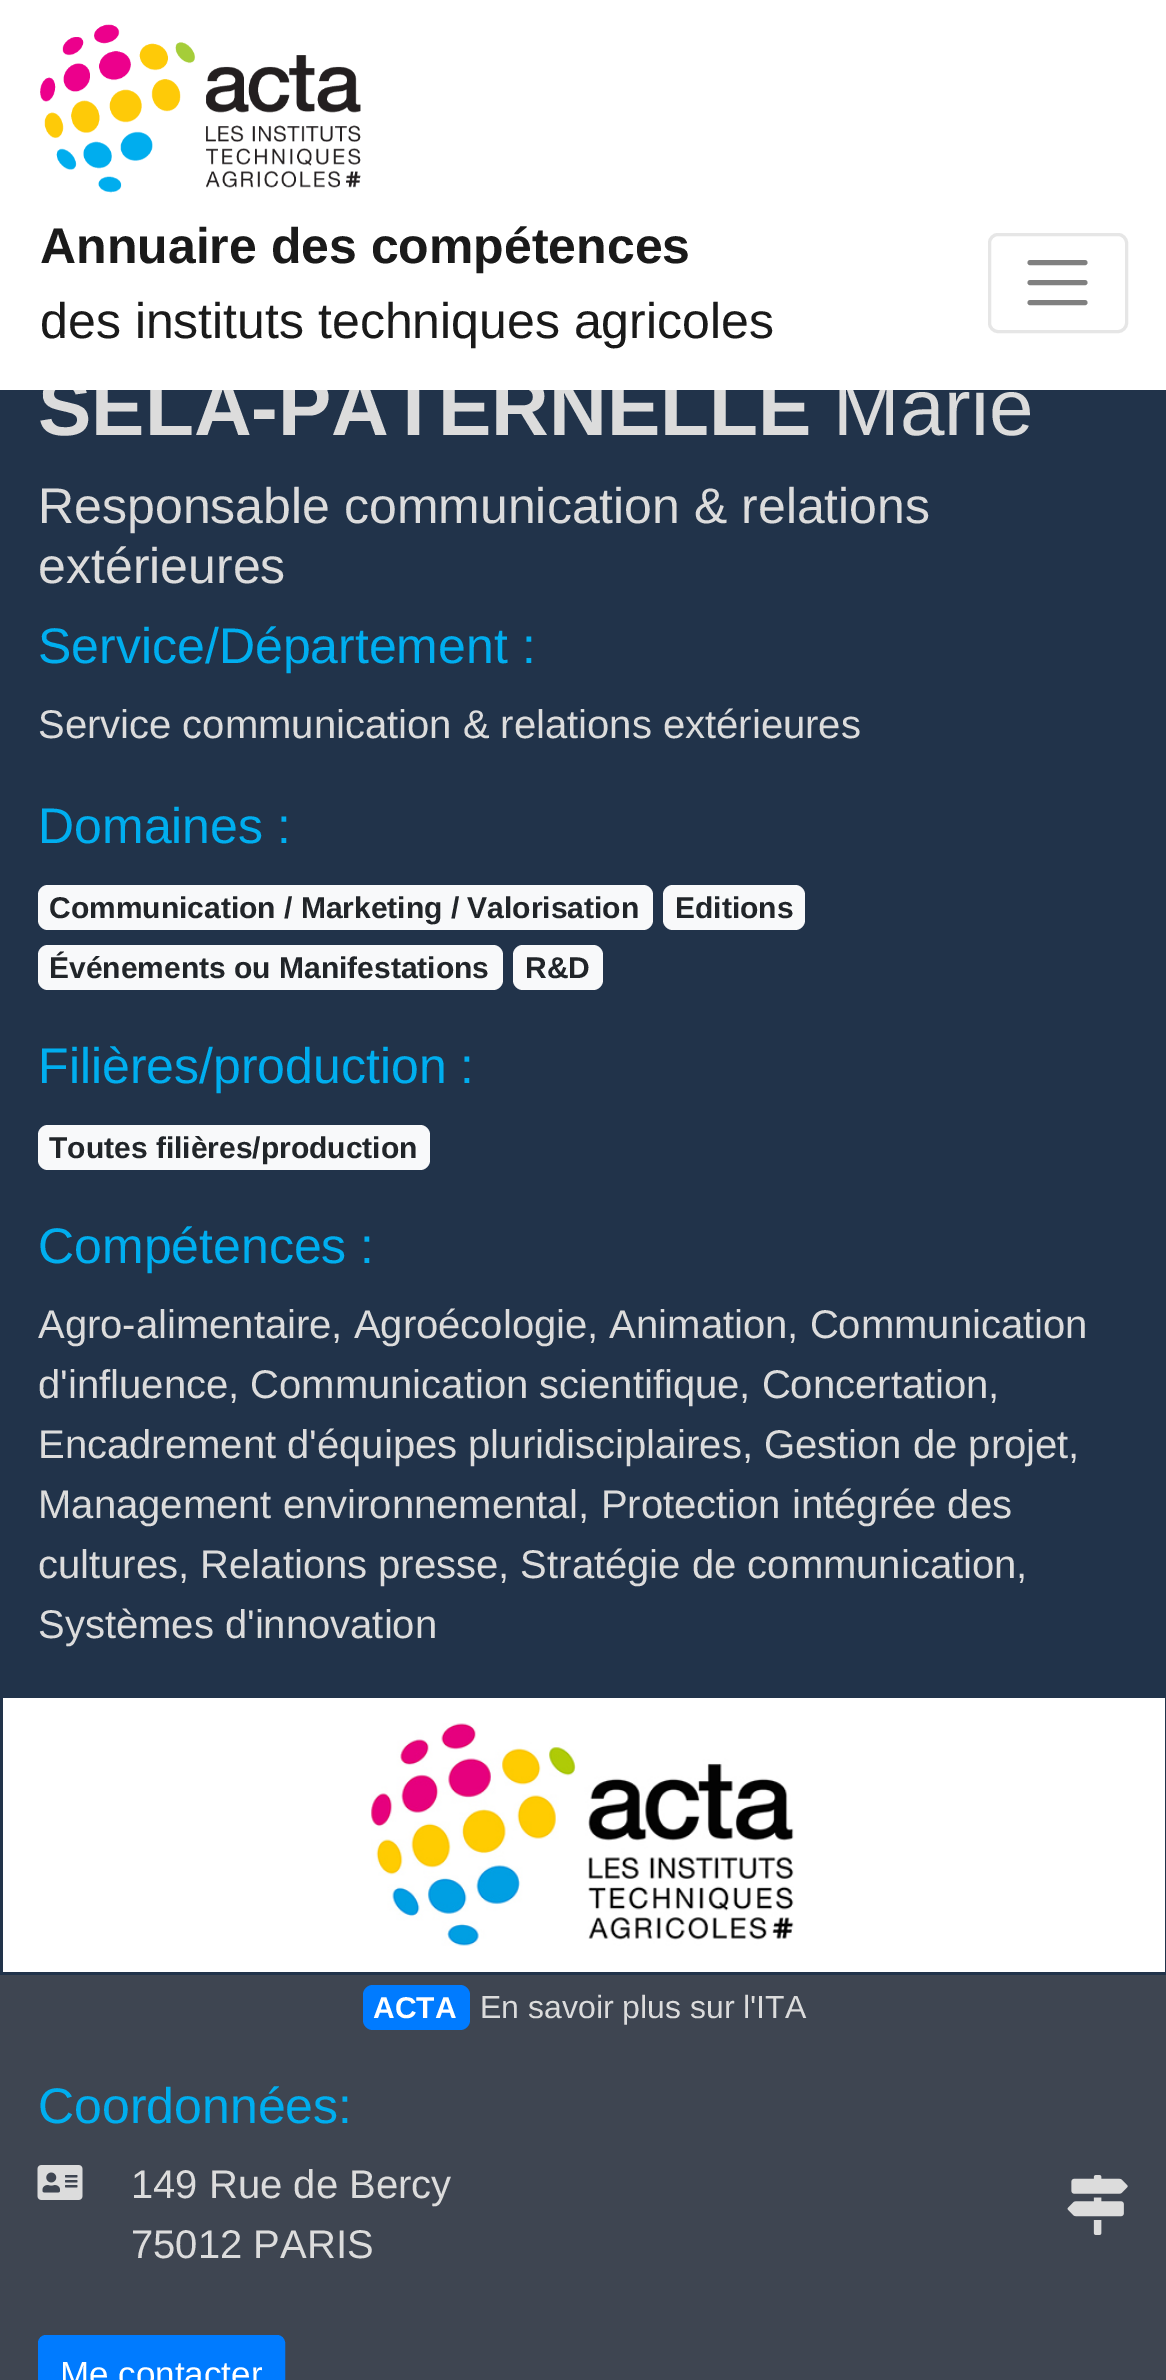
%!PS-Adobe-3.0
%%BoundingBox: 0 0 1166 2380
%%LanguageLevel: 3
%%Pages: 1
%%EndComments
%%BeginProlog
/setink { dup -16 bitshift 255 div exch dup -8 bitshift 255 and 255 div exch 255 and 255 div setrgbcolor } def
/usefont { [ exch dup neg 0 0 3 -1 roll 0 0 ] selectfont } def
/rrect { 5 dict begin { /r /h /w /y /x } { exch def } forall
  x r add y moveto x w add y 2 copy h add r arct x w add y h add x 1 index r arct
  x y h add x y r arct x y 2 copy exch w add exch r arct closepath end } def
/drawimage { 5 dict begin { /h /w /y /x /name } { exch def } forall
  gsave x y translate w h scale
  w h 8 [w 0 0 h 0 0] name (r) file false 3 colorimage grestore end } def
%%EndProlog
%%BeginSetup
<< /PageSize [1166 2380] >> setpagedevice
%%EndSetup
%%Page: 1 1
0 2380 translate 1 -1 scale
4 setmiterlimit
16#21334A setink
0 0 1166 2380 rectfill
/LiberationSans-Bold 80 usefont
16#DCDCDC setink
38 435 moveto (SELA-PATERNELLE) show
/LiberationSans-Regular 80 usefont
833 435 moveto (Marie) show
16#FFFFFF setink
0 0 1166 390 rectfill
(img1.raw) 40 24 321 169 drawimage
/LiberationSans-Bold 50 usefont
16#1A1A1A setink
40 263 moveto (Annuaire des compétences) show
/LiberationSans-Regular 50 usefont
40 338 moveto (des instituts techniques agricoles) show
16#E6E6E6 setink
3 setlinewidth
989.5 234.5 137 97 8.5 rrect stroke
16#808080 setink
5 setlinewidth
1 setlinecap
1030 262.5 moveto 1085 262.5 lineto 1030 282.5 moveto 1085 282.5 lineto 1030 302.5 moveto 1085 302.5 lineto stroke
16#DCDCDC setink
38 523 moveto (Responsable communication & relations) show
38 583 moveto (extérieures) show
16#00AEEF setink
38 663 moveto (Service/Département :) show
/LiberationSans-Regular 40 usefont
16#DCDCDC setink
38 738 moveto (Service communication & relations extérieures) show
/LiberationSans-Regular 50 usefont
16#00AEEF setink
38 843 moveto (Domaines :) show
16#F8F9FA setink
38 885 615 45 10 rrect fill
/LiberationSans-Bold 30 usefont
16#212529 setink
49 918 moveto (Communication / Marketing / Valorisation) show
16#F8F9FA setink
663 885 142 45 10 rrect fill
16#212529 setink
675 918 moveto (Editions) show
16#F8F9FA setink
38 945 465 45 10 rrect fill
16#212529 setink
49 978 moveto (Événements ou Manifestations) show
16#F8F9FA setink
513 945 90 45 10 rrect fill
16#212529 setink
525 978 moveto (R&D) show
/LiberationSans-Regular 50 usefont
16#00AEEF setink
38 1083 moveto (Filières/production :) show
16#F8F9FA setink
38 1125 392 45 10 rrect fill
/LiberationSans-Bold 30 usefont
16#212529 setink
49 1158 moveto (Toutes filières/production) show
/LiberationSans-Regular 50 usefont
16#00AEEF setink
38 1263 moveto (Compétences :) show
/LiberationSans-Regular 40 usefont
16#DCDCDC setink
[
    [(Agro-alimentaire, Agroécologie, Animation, Communication) 38 1338]
    [(d'influence, Communication scientifique, Concertation,) 38 1398]
    [(Encadrement d'équipes pluridisciplaires, Gestion de projet,) 38 1458]
    [(Management environnemental, Protection intégrée des) 38 1518]
    [(cultures, Relations presse, Stratégie de communication,) 38 1578]
    [(Systèmes d'innovation) 38 1638]
] { aload pop moveto show } forall
16#3E4551 setink
0 1975 1166 405 rectfill
16#FFFFFF setink
3 1698 1162 274 rectfill
(img2.raw) 371 1723 423 223 drawimage
16#007BFF setink
363 1985 107 45 10 rrect fill
/LiberationSans-Bold 30 usefont
16#FFFFFF setink
373 2018 moveto (ACTA) show
/LiberationSans-Regular 32 usefont
16#DCDCDC setink
480 2018 moveto (En savoir plus sur l'ITA) show
/LiberationSans-Regular 50 usefont
16#00AEEF setink
38 2123 moveto (Coordonnées:) show
(img3.raw) 37 2165 46 35 drawimage
/LiberationSans-Regular 40 usefont
16#DCDCDC setink
131 2198 moveto (149 Rue de Bercy) show
131 2258 moveto (75012 PARIS) show
(img4.raw) 1067 2175 61 60 drawimage
16#007BFF setink
39.5 2336.5 244 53 6.5 rrect gsave fill grestore
3 setlinewidth
0 setlinecap
stroke
/LiberationSans-Regular 35 usefont
16#FFFFFF setink
60 2386 moveto (Me contacter) show
showpage
%%EOF
